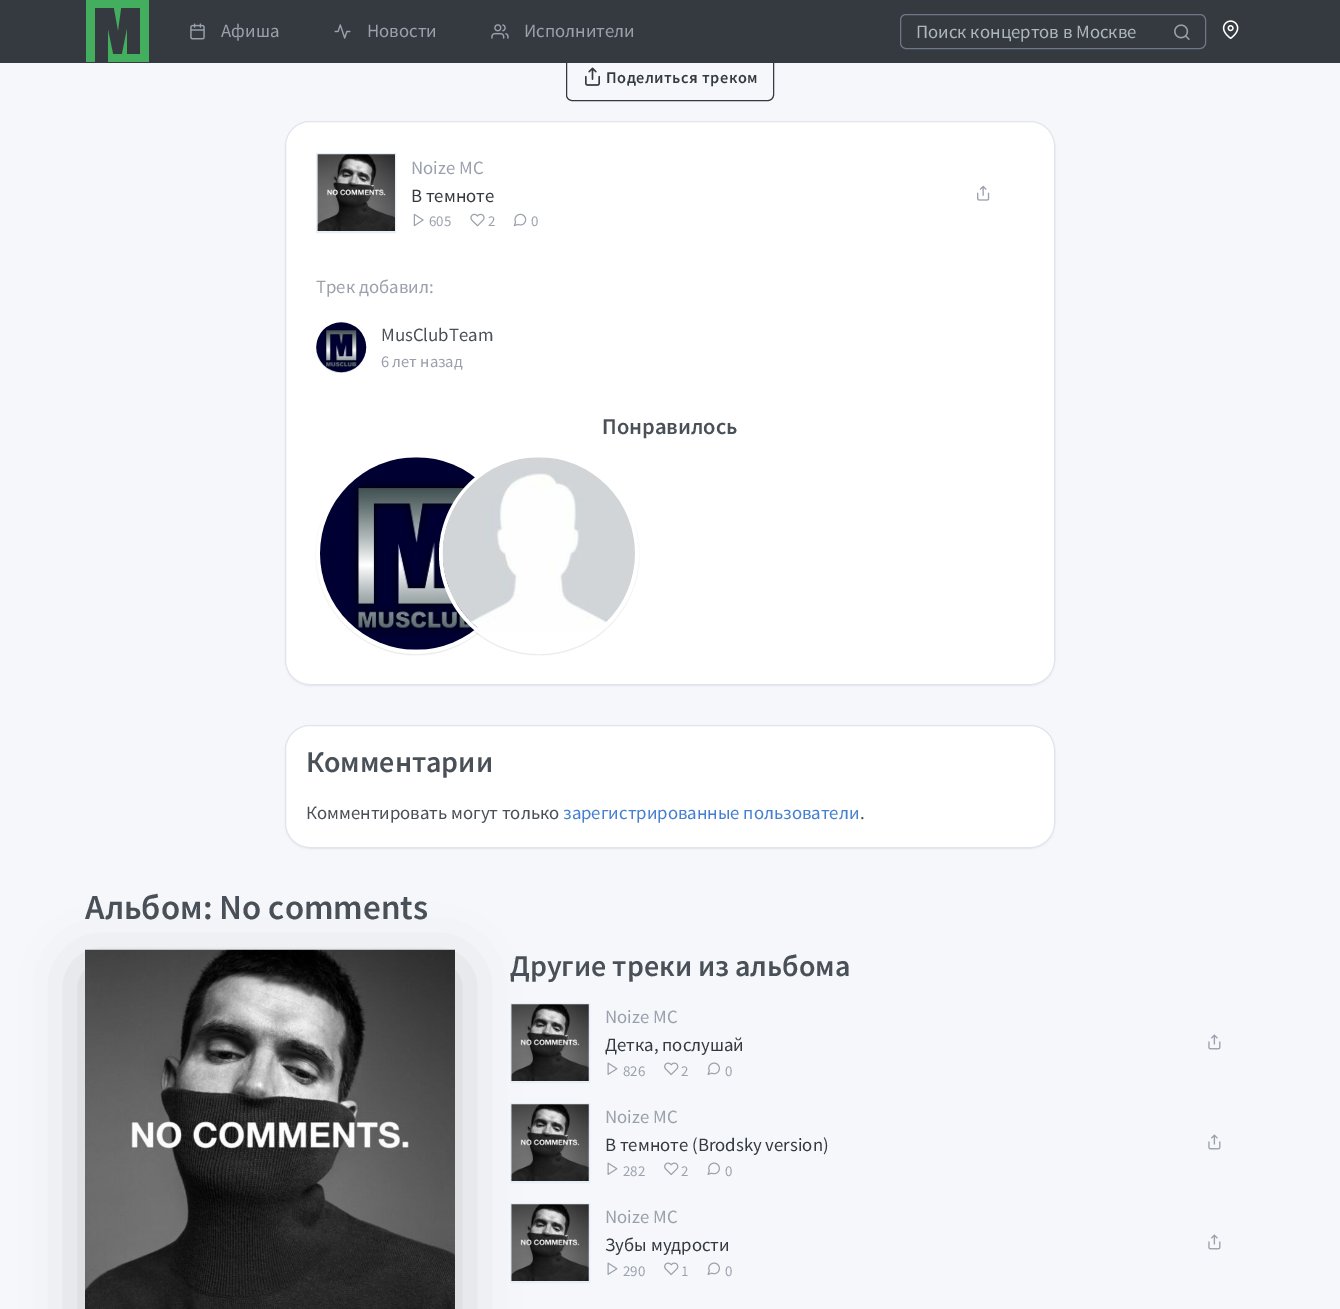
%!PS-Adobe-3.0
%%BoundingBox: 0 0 1340 1309
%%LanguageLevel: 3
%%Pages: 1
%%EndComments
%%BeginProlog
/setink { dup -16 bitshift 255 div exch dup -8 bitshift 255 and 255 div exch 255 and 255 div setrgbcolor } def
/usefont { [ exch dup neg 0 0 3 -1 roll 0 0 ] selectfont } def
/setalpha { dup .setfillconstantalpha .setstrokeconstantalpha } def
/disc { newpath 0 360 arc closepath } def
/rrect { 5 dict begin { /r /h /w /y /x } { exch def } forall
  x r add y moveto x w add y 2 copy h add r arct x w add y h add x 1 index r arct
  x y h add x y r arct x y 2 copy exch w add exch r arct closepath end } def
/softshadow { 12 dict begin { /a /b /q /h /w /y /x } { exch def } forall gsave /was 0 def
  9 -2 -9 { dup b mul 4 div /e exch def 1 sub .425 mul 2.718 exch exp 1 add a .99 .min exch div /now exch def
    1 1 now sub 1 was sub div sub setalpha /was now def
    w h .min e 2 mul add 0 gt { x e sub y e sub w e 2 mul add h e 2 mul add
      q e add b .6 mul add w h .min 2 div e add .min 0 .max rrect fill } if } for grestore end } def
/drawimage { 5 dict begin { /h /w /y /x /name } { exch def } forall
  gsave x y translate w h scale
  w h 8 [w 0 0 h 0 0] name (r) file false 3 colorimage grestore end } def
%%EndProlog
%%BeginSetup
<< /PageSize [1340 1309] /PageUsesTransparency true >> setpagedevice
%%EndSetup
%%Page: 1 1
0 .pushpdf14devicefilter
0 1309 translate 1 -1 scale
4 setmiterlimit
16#F5F7FB setink
0 0 1340 1309 rectfill
16#343A40 setink
566.5 54.5 207 46 5.5 rrect stroke
0 0 1340 63 rectfill
16#43AE5E setink
86 0 moveto 149 0 lineto 149 62 lineto 108 62 lineto 108 30 lineto 113 54 lineto 122 54 lineto 127 29 lineto 127 54 lineto 140 54 lineto 140 8 lineto 121 8 lineto 118 30 lineto 114 8 lineto 95 8 lineto 95 62 lineto 86 62 lineto closepath fill
(img1.raw) 190 23 15 17 drawimage
/SourceSansPro-Regular 18.75 usefont
16#9AA0AC setink
221 37 moveto (Афиша) show
(img2.raw) 334 24 17 15 drawimage
367 37 moveto (Новости) show
(img3.raw) 491 24 18 15 drawimage
524 37 moveto (Исполнители) show
16#6E7687 setink
900.5 14.5 305 34 5.5 rrect stroke
16#ADB5BD setink
916 38 moveto (Поиск концертов в Москве) show
(img4.raw) 1174 24 16 16 drawimage
(img5.raw) 1222 20 17 19 drawimage
(img6.raw) 585 67 15 19 drawimage
/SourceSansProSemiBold-SemiBold 16.25 usefont
16#343A40 setink
606 83 moveto 0.5 0 (Поделиться треком) ashow
16#000000 setink
285 123 770 563 25 1 0.05 softshadow
16#FFFFFF setink
285 121 770 564 25 rrect fill
0.12 setalpha
16#002864 setink
285.5 121.5 769 563 24.5 rrect stroke
1 setalpha
16#E6EFF5 setink
317 154 78 78 rectfill
(img7.raw) 317 154 78 77 drawimage
316.5 153.5 79 79 rectstroke
/SourceSansPro-Regular 18.75 usefont
16#9AA0AC setink
411 174 moveto (Noize MC) show
16#343A40 setink
411 202 moveto (В темноте) show
(img8.raw) 413 213 11 14 drawimage
/SourceSansPro-Regular 15 usefont
16#9AA0AC setink
429 226 moveto (605) show
(img9.raw) 470 213 15 14 drawimage
488 226 moveto (2) show
(img10.raw) 513 213 14 14 drawimage
531 226 moveto (0) show
(img11.raw) 977 185 13 16 drawimage
/SourceSansPro-Regular 18.75 usefont
316 293 moveto (Трек добавил:) show
16#CED4DA setink
341 348 25 disc fill
(img12.raw) 316 322 51 51 drawimage
16#495057 setink
381 341 moveto (MusClubTeam) show
/SourceSansPro-Regular 16.5 usefont
16#9AA0AC setink
381 367 moveto (6 лет назад) show
/SourceSansProSemiBold-SemiBold 22.5 usefont
16#495057 setink
602 434 moveto (Понравилось) show
16#000000 setink
316 455 200 200 100 0.5 0.1 softshadow
16#FFFFFF setink
4 setlinewidth
416 554 98 disc stroke
(img13.raw) 320 457 158 193 drawimage
gsave
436 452 moveto 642 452 lineto 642 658 lineto 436 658 lineto closepath 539 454 moveto 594 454 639 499 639 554 curveto 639 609 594 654 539 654 curveto 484 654 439 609 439 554 curveto 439 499 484 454 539 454 curveto closepath eoclip newpath
16#000000 setink
439 455 200 200 100 0.5 0.1 softshadow
grestore
539 554 98 disc stroke
(img14.raw) 442 457 193 174 drawimage
16#000000 setink
285 726 770 123 25 1 0.05 softshadow
16#FFFFFF setink
285 725 770 123 25 rrect fill
0.12 setalpha
16#002864 setink
1 setlinewidth
285.5 725.5 769 122 24.5 rrect stroke
/SourceSansProSemiBold-SemiBold 30 usefont
1 setalpha
16#495057 setink
306 772 moveto (Комментарии) show
/SourceSansPro-Regular 18.75 usefont
306 819 moveto (Комментировать могут только) show
16#467FCF setink
563 819 moveto (зарегистрированные пользователи) show
16#495057 setink
860 819 moveto (.) show
16#000000 setink
85 970 370 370 0 30 0.18 softshadow
(img15.raw) 85 949 370 360 drawimage
/SourceSansProSemiBold-SemiBold 35 usefont
16#495057 setink
85 919 moveto (Альбом: No comments) show
/SourceSansProSemiBold-SemiBold 30 usefont
510 976 moveto (Другие треки из альбома) show
16#E6EFF5 setink
511 1004 78 78 rectfill
(img16.raw) 511 1004 78 77 drawimage
510.5 1003.5 79 79 rectstroke
/SourceSansPro-Regular 18.75 usefont
16#9AA0AC setink
605 1023 moveto (Noize MC) show
16#343A40 setink
605 1051 moveto (Детка, послушай) show
(img17.raw) 607 1062 11 13 drawimage
/SourceSansPro-Regular 15 usefont
16#9AA0AC setink
623 1076 moveto (826) show
(img18.raw) 664 1062 15 14 drawimage
681 1076 moveto (2) show
(img19.raw) 707 1062 13 13 drawimage
725 1076 moveto (0) show
(img20.raw) 1208 1034 13 16 drawimage
16#E6EFF5 setink
511 1104 78 78 rectfill
(img16.raw) 511 1104 78 77 drawimage
510.5 1103.5 79 79 rectstroke
/SourceSansPro-Regular 18.75 usefont
16#9AA0AC setink
605 1123 moveto (Noize MC) show
16#343A40 setink
605 1151 moveto (В темноте \(Brodsky version\)) show
(img17.raw) 607 1162 11 13 drawimage
/SourceSansPro-Regular 15 usefont
16#9AA0AC setink
623 1176 moveto (282) show
(img18.raw) 664 1162 15 14 drawimage
681 1176 moveto (2) show
(img19.raw) 707 1162 13 13 drawimage
725 1176 moveto (0) show
(img20.raw) 1208 1134 13 16 drawimage
16#E6EFF5 setink
511 1204 78 78 rectfill
(img16.raw) 511 1204 78 77 drawimage
510.5 1203.5 79 79 rectstroke
/SourceSansPro-Regular 18.75 usefont
16#9AA0AC setink
605 1223 moveto (Noize MC) show
16#343A40 setink
605 1251 moveto (Зубы мудрости) show
(img17.raw) 607 1262 11 13 drawimage
/SourceSansPro-Regular 15 usefont
16#9AA0AC setink
623 1276 moveto (290) show
(img18.raw) 664 1262 15 14 drawimage
681 1276 moveto (1) show
(img19.raw) 707 1262 13 13 drawimage
725 1276 moveto (0) show
(img20.raw) 1208 1234 13 16 drawimage
.poppdf14devicefilter showpage
%%EOF
